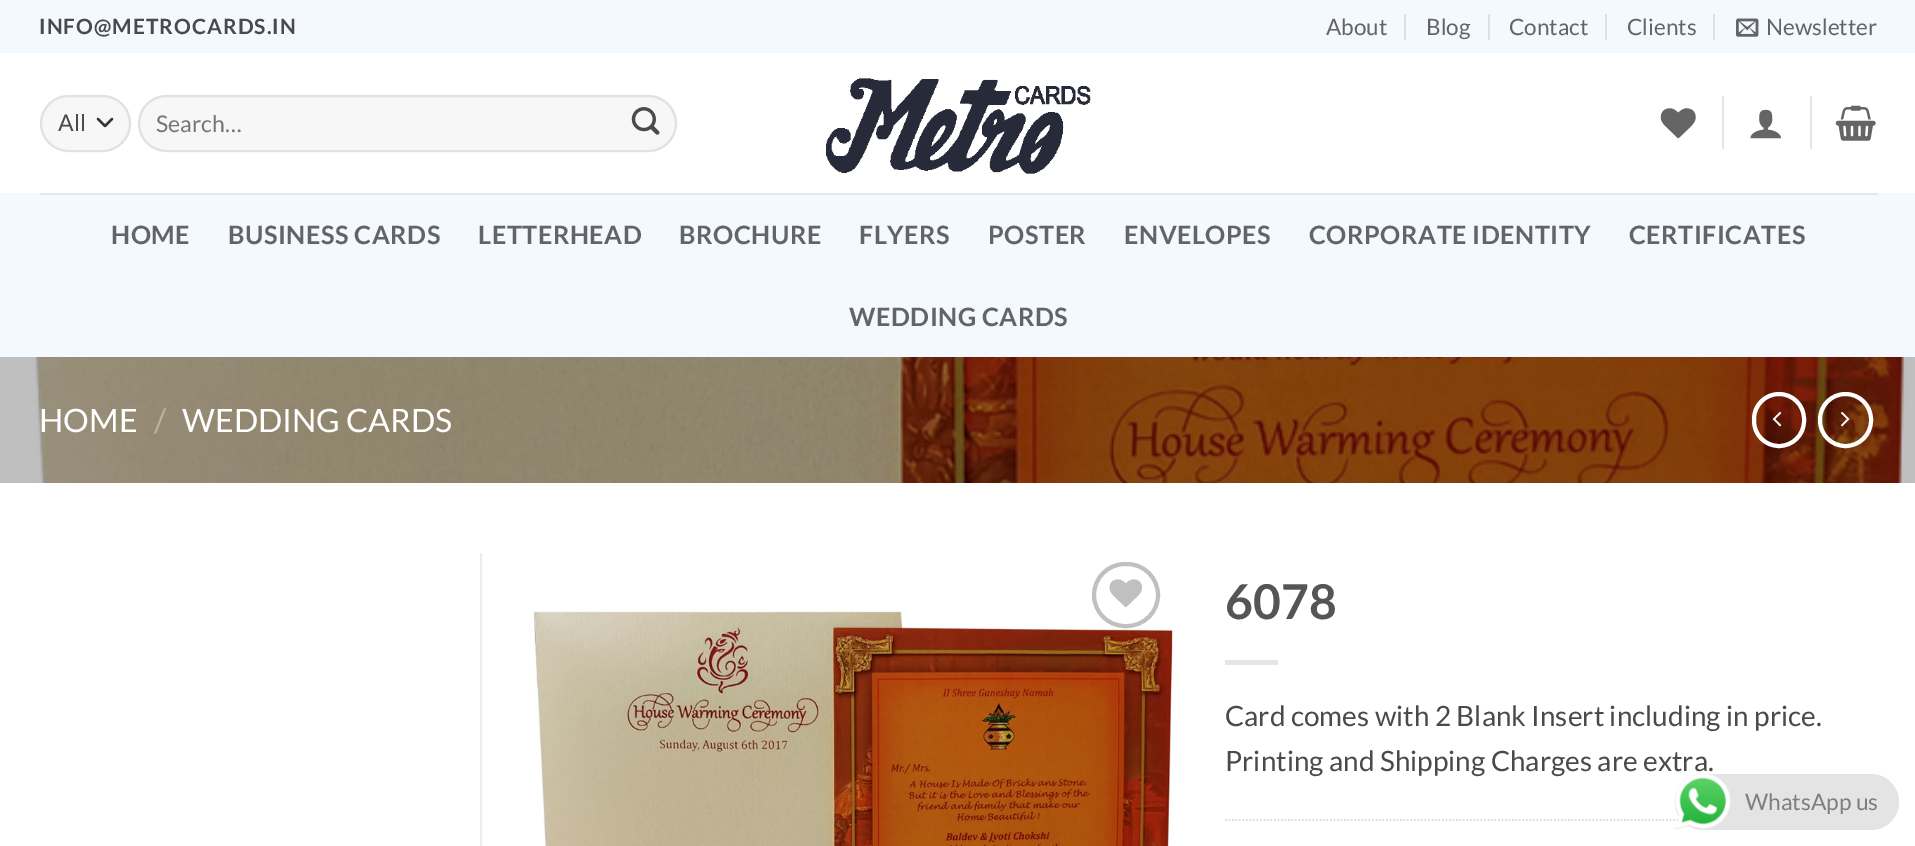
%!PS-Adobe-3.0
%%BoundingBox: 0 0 1915 846
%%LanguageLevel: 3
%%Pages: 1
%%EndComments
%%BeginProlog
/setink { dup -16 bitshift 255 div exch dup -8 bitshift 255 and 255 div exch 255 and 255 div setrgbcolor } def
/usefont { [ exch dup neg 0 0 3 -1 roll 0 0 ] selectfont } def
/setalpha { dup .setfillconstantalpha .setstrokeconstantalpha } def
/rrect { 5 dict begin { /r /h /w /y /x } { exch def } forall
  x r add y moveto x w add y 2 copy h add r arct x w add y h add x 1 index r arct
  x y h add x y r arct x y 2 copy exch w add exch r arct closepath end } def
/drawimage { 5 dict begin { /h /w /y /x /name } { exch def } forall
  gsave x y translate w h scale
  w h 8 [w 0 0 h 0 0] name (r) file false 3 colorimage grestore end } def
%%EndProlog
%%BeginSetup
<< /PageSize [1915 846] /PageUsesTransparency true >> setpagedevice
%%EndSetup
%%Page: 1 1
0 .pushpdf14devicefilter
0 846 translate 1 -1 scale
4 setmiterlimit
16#FFFFFF setink
0 0 1915 846 rectfill
16#F3F9FE setink
0 0 1915 53 rectfill
/Lato-Bold 21 usefont
16#4A4A4A setink
39 34 moveto 1 0 (INFO@METROCARDS.IN) ashow
/Lato-Regular 22.5 usefont
16#636465 setink
1326 35 moveto (About) show
16#DBE0E5 setink
1404 14 2 26 rectfill
16#636465 setink
1426 35 moveto (Blog) show
16#DBE0E5 setink
1488 14 2 26 rectfill
16#636465 setink
1509 35 moveto (Contact) show
16#DBE0E5 setink
1605 14 2 26 rectfill
16#636465 setink
1627 35 moveto (Clients) show
16#DBE0E5 setink
1713 14 2 26 rectfill
(img1.raw) 1736 18 23 19 drawimage
16#636465 setink
1766 35 moveto (Newsletter) show
16#F7F7F7 setink
40 95 91 57 28.5 rrect fill
16#333333 setink
2.3 setlinewidth
1 setlinecap
1 setlinejoin
98 119 moveto 105 126 lineto 112 119 lineto stroke
0.09 setalpha
16#000000 setink
2 setlinewidth
0 setlinecap
0 setlinejoin
41 96 89 55 27.5 rrect stroke
/Lato-Regular 23 usefont
1 setalpha
16#4A4A4A setink
58 131 moveto (All) show
16#F7F7F7 setink
138 95 539 57 28.5 rrect fill
0.09 setalpha
16#000000 setink
139 96 537 55 27.5 rrect stroke
1 setalpha
16#757575 setink
156 132 moveto (Search…) show
(img2.raw) 631 107 29 28 drawimage
(img3.raw) 826 78 265 96 drawimage
(img4.raw) 1660 108 36 31 drawimage
16#E6E6E6 setink
1722 96 2 53 rectfill
(img5.raw) 1750 109 31 30 drawimage
1810 96 2 53 rectfill
(img6.raw) 1835 105 41 36 drawimage
16#F3F9FE setink
0 193 1915 164 rectfill
16#E2E7EC setink
40 193 1838 2 rectfill
/Lato-Bold 25.25 usefont
16#636465 setink
111 244 moveto 0.5 0 (HOME) ashow
228 244 moveto 0.5 0 (BUSINESS CARDS) ashow
478 244 moveto 0.5 0 (LETTERHEAD) ashow
679 244 moveto 0.5 0 (BROCHURE) ashow
859 244 moveto 0.5 0 (FLYERS) ashow
988 244 moveto 0.5 0 (POSTER) ashow
1124 244 moveto 0.5 0 (ENVELOPES) ashow
1309 244 moveto 0.5 0 (CORPORATE IDENTITY) ashow
1629 244 moveto 0.5 0 (CERTIFICATES) ashow
849 326 moveto 0.5 0 (WEDDING CARDS) ashow
(img7.raw) 0 357 1915 126 drawimage
/Lato-Regular 32.25 usefont
16#FFFFFF setink
39 432 moveto (HOME) show
16#BAB3A5 setink
154 432 moveto (/) show
16#FFFFFF setink
182 432 moveto (WEDDING CARDS) show
4 setlinewidth
1754 394 50 52 25 rrect stroke
(img8.raw) 1772 411 10 16 drawimage
1820 394 51 52 25.5 rrect stroke
(img9.raw) 1841 411 9 16 drawimage
16#ECECEC setink
480 553 2 293 rectfill
(img11.raw) 533 611 640 235 drawimage
16#C0C0C0 setink
1094 564 64 62 31 rrect stroke
(img10.raw) 1109 579 34 29 drawimage
/Lato-Bold 48 usefont
16#555555 setink
1225 619 moveto (6078) show
16#E6E6E6 setink
1225 660 53 5 rectfill
/Lato-Regular 28 usefont
16#4A4A4A setink
1225 726 moveto (Card comes with 2 Blank Insert including in price.) show
1225 771 moveto (Printing and Shipping Charges are extra.) show
16#DDDDDD setink
1.8 setlinewidth
[1.75 1.75] 0 setdash
1225 820 moveto 1864 820 lineto stroke
16#E4E4E4 setink
1675 774 224 56 28 rrect fill
(img12.raw) 1674 773 57 57 drawimage
/Lato-Regular 22.75 usefont
16#7F7D7D setink
1745 810 moveto (WhatsApp us) show
.poppdf14devicefilter showpage
%%EOF
